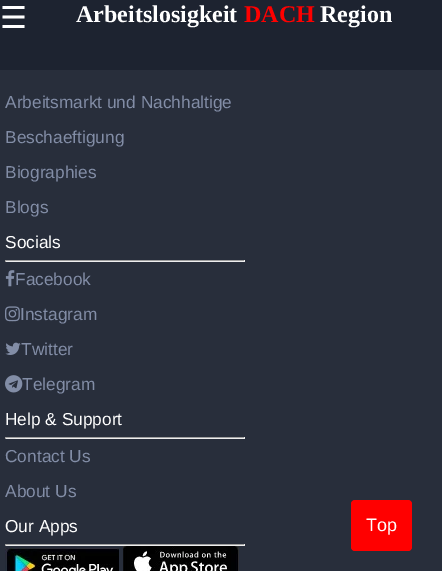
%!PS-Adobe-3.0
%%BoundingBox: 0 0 442 571
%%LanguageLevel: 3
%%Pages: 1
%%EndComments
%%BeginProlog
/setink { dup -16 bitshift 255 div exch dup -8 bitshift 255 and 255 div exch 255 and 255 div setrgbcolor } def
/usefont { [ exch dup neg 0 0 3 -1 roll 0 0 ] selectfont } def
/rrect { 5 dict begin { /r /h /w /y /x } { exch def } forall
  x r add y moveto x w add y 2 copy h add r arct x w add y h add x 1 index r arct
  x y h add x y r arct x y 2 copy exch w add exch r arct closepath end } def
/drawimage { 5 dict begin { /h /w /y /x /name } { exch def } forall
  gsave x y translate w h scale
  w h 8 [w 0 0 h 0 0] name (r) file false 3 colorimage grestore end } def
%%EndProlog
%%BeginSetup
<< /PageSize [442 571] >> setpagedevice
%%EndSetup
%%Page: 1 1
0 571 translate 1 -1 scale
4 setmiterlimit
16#282E3B setink
0 0 442 571 rectfill
16#1D2330 setink
0 0 442 70 rectfill
/DejaVuSans-Regular 30 usefont
16#FFFFFF setink
0 28 moveto (☰) show
/LiberationSerif-Bold 24 usefont
76 22 moveto (Arbeitslosigkeit) show
16#FF0000 setink
244 22 moveto (DACH) show
16#FFFFFF setink
320 22 moveto (Region) show
/LiberationSans-Regular 17.3 usefont
16#828DA6 setink
[
    [(Arbeitsmarkt und Nachhaltige) 5 108]
    [(Beschaeftigung) 5 143]
    [(Biographies) 5 178]
    [(Blogs) 5 213]
] { aload pop moveto show } forall
16#FFFFFF setink
5 248 moveto (Socials) show
[
    [5 260 240 1 16#9F9F9F]
    [244 260 1 2 16#EEEEEE]
    [5 261 240 1 16#EEEEEE]
    [5 260 1 2 16#9F9F9F]
] { aload pop setink rectfill } forall
(img1.raw) 5 270 10 17 drawimage
16#828DA6 setink
15 285 moveto (Facebook) show
(img2.raw) 5 306 15 16 drawimage
20 320 moveto (Instagram) show
(img3.raw) 5 342 16 13 drawimage
21 355 moveto (Twitter) show
(img4.raw) 5 375 18 18 drawimage
22 390 moveto (Telegram) show
16#FFFFFF setink
5 425 moveto (Help & Support) show
[
    [5 437 240 1 16#9F9F9F]
    [244 437 1 2 16#EEEEEE]
    [5 438 240 1 16#EEEEEE]
    [5 437 1 2 16#9F9F9F]
] { aload pop setink rectfill } forall
16#828DA6 setink
5 462 moveto (Contact Us) show
5 497 moveto (About Us) show
16#FFFFFF setink
5 532 moveto (Our Apps) show
[
    [5 544 240 1 16#9F9F9F]
    [244 544 1 2 16#EEEEEE]
    [5 545 240 1 16#EEEEEE]
    [5 544 1 2 16#9F9F9F]
] { aload pop setink rectfill } forall
(img5.raw) 5 548 114 23 drawimage
(img6.raw) 123 546 116 25 drawimage
16#FF0000 setink
351 500 61 51 4 rrect fill
/LiberationSans-Regular 18 usefont
16#FFFFFF setink
366 531 moveto (Top) show
showpage
%%EOF
